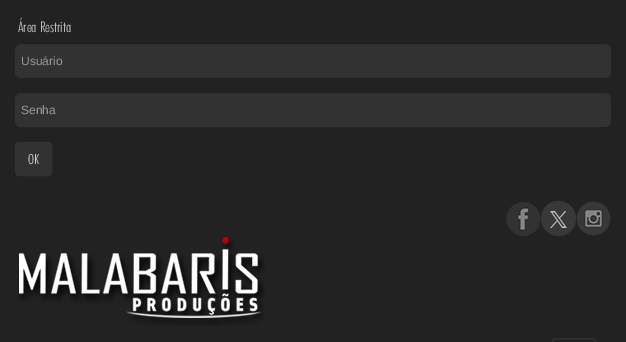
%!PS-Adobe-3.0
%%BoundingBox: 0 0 626 342
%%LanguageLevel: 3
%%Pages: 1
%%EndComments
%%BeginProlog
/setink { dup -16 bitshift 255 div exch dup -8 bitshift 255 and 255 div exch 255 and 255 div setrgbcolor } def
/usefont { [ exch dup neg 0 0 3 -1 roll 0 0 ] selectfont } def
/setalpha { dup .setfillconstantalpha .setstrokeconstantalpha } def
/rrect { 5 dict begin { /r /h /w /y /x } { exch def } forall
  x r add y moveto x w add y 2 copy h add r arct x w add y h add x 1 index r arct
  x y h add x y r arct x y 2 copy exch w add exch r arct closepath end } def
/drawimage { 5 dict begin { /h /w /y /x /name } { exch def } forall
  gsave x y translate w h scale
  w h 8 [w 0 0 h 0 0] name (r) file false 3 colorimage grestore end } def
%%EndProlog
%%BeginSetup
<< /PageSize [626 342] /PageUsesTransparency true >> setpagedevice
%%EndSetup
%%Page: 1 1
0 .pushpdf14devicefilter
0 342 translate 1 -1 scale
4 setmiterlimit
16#222222 setink
0 0 626 342 rectfill
/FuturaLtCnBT-Light 15 usefont
16#BBBBBB setink
18 32 moveto (Área Restrita) show
16#323232 setink
15 44 596 34 6 rrect fill
0.07 setalpha
16#000000 setink
21 45 moveto 605 45 lineto 608 45 611 48 611 51 curveto 611 50 lineto 611 47 608 44 605 44 curveto 21 44 lineto 18 44 15 47 15 50 curveto 15 51 lineto 15 48 18 45 21 45 curveto closepath fill
/LiberationSans-Regular 12 usefont
1 setalpha
16#999999 setink
21 65 moveto (Usuário) show
16#323232 setink
15 93 596 34 6 rrect fill
0.07 setalpha
16#000000 setink
21 94 moveto 605 94 lineto 608 94 611 97 611 100 curveto 611 99 lineto 611 96 608 93 605 93 curveto 21 93 lineto 18 93 15 96 15 99 curveto 15 100 lineto 15 97 18 94 21 94 curveto closepath fill
1 setalpha
16#999999 setink
21 114 moveto (Senha) show
16#323232 setink
15.5 142.5 36 33 3.5 rrect gsave fill grestore
stroke
/FuturaLtCnBT-Light 14 usefont
16#CCCCCC setink
28 164 moveto (OK) show
(img1.raw) 506 202 35 34 drawimage
(img2.raw) 541 201 35 35 drawimage
(img3.raw) 576 201 35 35 drawimage
(img4.raw) 18 237 247 89 drawimage
16#333333 setink
552.5 338.5 43 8 3.5 rrect stroke
.poppdf14devicefilter showpage
%%EOF
